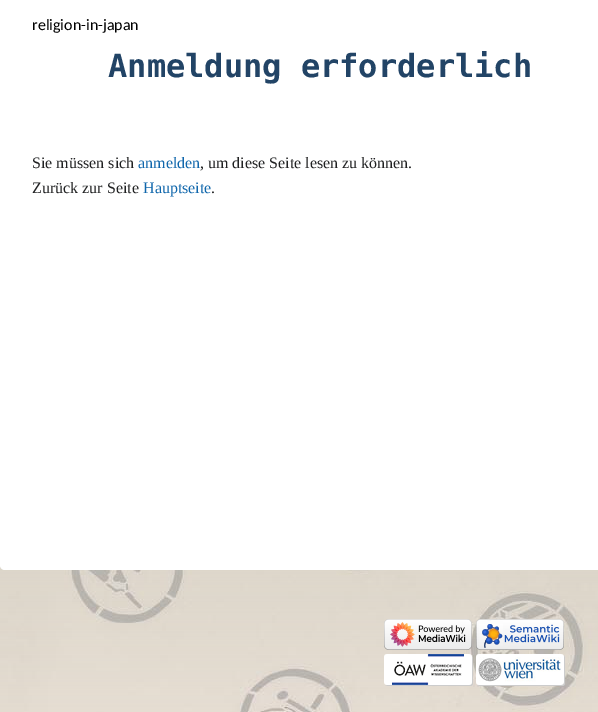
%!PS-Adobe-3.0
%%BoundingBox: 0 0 598 712
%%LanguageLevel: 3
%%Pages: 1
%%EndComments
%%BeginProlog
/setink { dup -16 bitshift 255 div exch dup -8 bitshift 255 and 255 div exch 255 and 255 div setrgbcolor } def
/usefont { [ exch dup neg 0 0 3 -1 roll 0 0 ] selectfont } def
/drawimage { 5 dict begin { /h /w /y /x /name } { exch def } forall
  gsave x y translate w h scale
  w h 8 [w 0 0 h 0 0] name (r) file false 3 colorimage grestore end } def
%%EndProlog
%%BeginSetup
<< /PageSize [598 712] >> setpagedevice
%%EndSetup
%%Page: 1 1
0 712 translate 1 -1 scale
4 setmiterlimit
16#FFFFFF setink
0 0 598 712 rectfill
(img1.raw) 0 565 598 147 drawimage
0 0 moveto 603 0 lineto 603 565 lineto 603 568 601 570 598 570 curveto 5 570 lineto 2 570 0 568 0 565 curveto closepath fill
/Carlito-Regular 16 usefont
16#000000 setink
32 30 moveto (religion-in-japan) show
/DejaVuSansMono-Bold 32 usefont
16#224466 setink
108 77 moveto (Anmeldung erforderlich) show
/LiberationSerif-Regular 16 usefont
16#202122 setink
32 168 moveto (Sie müssen sich) show
16#1067AC setink
138 168 moveto (anmelden) show
16#202122 setink
200 168 moveto (, um diese Seite lesen zu können.) show
32 193 moveto (Zurück zur Seite) show
16#1067AC setink
143 193 moveto (Hauptseite) show
16#202122 setink
211 193 moveto (.) show
(img2.raw) 384 619 88 31 drawimage
(img3.raw) 476 619 88 31 drawimage
16#CCCCCC setink
385 685 moveto 386 685 387 686 388 686 curveto 470 686 lineto 472 686 473 685 473 683 curveto 473 658 lineto 473 657 472 656 472 655 curveto 472 657 lineto 472 682 lineto 472 684 471 685 469 685 curveto 387 685 lineto closepath fill
(img4.raw) 384 654 88 31 drawimage
477 685 moveto 478 685 479 686 480 686 curveto 562 686 lineto 564 686 565 685 565 683 curveto 565 658 lineto 565 657 564 656 564 655 curveto 564 657 lineto 564 682 lineto 564 684 563 685 561 685 curveto 479 685 lineto closepath fill
(img5.raw) 476 654 88 31 drawimage
showpage
%%EOF
